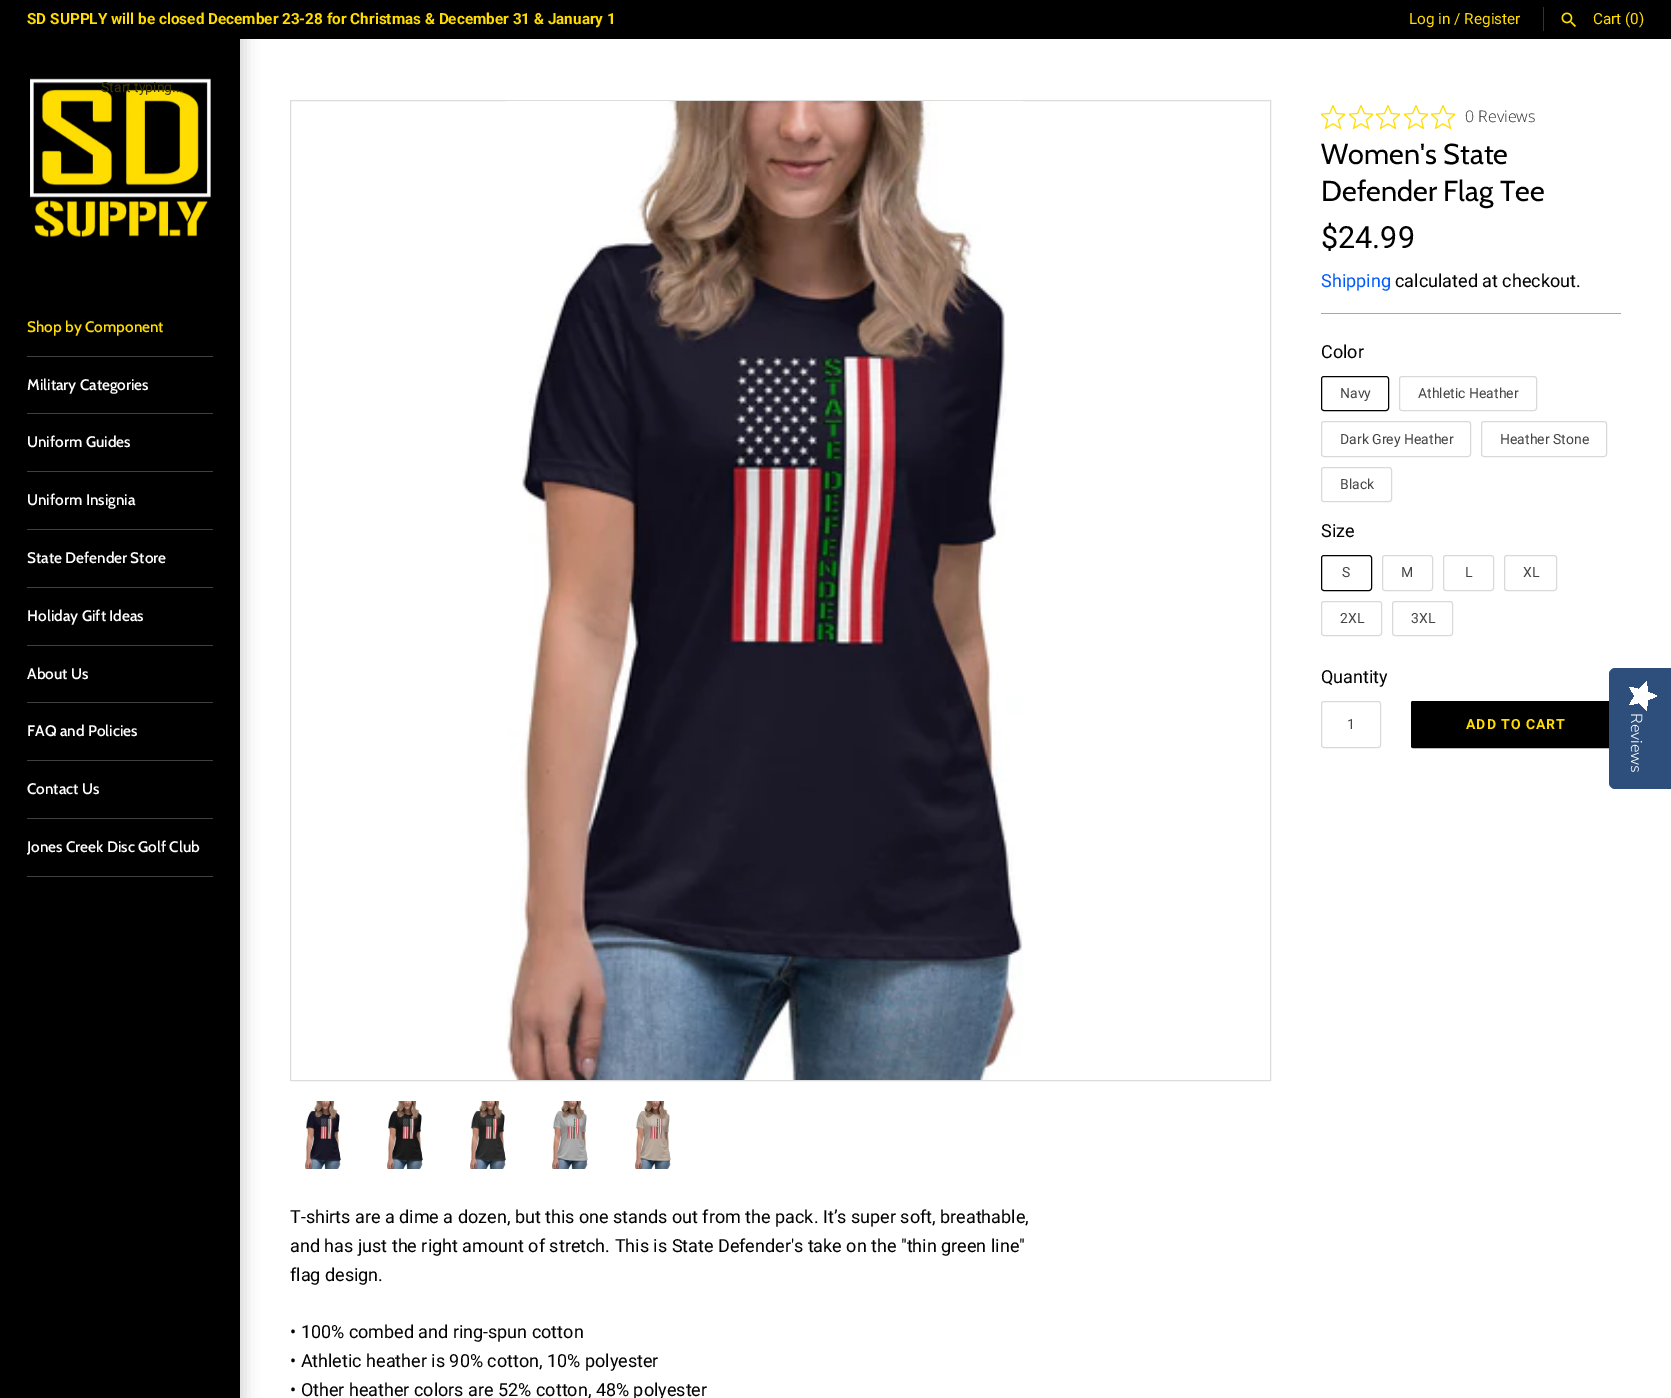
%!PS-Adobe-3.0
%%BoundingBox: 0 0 1671 1398
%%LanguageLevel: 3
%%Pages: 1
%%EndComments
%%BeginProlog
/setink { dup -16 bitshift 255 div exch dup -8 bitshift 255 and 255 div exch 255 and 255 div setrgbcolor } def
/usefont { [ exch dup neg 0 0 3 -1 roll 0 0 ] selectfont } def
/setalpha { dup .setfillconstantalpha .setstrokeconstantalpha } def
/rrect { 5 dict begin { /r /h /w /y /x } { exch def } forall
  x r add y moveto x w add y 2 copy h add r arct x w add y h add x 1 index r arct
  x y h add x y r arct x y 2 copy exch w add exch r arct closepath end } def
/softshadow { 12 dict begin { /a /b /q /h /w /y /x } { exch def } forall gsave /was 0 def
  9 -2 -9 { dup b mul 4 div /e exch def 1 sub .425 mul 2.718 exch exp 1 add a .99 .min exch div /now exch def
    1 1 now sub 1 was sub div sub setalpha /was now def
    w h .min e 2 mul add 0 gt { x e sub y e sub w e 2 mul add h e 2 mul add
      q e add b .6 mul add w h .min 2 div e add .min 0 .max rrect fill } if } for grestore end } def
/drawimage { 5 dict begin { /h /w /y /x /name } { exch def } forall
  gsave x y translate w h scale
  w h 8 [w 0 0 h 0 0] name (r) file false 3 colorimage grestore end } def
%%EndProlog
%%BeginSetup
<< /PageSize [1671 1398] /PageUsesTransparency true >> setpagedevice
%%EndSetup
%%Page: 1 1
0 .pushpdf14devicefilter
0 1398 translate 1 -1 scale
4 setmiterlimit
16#FFFFFF setink
0 0 1671 1398 rectfill
16#000000 setink
-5 34 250 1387 0 7.5 0.15 softshadow
0 0 1671 39 rectfill
/Roboto-Bold 15.3 usefont
16#FFDD00 setink
27 24 moveto (SD SUPPLY will be closed December 23-28 for Christmas & December 31 & January 1) show
/Roboto-Regular 15.3 usefont
1409 24 moveto (Log in / Register) show
16#403700 setink
1543 7 1 24 rectfill
(img1.raw) 1561 12 15 15 drawimage
16#FFDD00 setink
1593 24 moveto (Cart \(0\)) show
16#000000 setink
0 39 240 1359 rectfill
(img2.raw) 30 78 181 159 drawimage
/Roboto-Regular 14 usefont
16#3D3606 setink
101 92 moveto (Start typing...) show
16#404040 setink
27 356 186 1 rectfill
/Cabin-SemiBold 15.3 usefont
16#FFDD00 setink
27 332 moveto (Shop by Component) show
16#404040 setink
27 413 186 1 rectfill
16#FFFFFF setink
27 390 moveto (Military Categories) show
16#404040 setink
27 471 186 1 rectfill
16#FFFFFF setink
27 447 moveto (Uniform Guides) show
16#404040 setink
27 529 186 1 rectfill
16#FFFFFF setink
27 505 moveto (Uniform Insignia) show
16#404040 setink
27 587 186 1 rectfill
16#FFFFFF setink
27 563 moveto (State Defender Store) show
16#404040 setink
27 645 186 1 rectfill
16#FFFFFF setink
27 621 moveto (Holiday Gift Ideas) show
16#404040 setink
27 702 186 1 rectfill
16#FFFFFF setink
27 679 moveto (About Us) show
16#404040 setink
27 760 186 1 rectfill
16#FFFFFF setink
27 736 moveto (FAQ and Policies) show
16#404040 setink
27 818 186 1 rectfill
16#FFFFFF setink
27 794 moveto (Contact Us) show
16#404040 setink
27 876 186 1 rectfill
16#FFFFFF setink
27 852 moveto (Jones Creek Disc Golf Club) show
16#DCDCDC setink
290.5 100.5 980 980 rectstroke
(img3.raw) 506 101 517 979 drawimage
(img4.raw) 305 1101 36 68 drawimage
(img5.raw) 387 1101 36 68 drawimage
(img6.raw) 470 1101 36 68 drawimage
(img7.raw) 552 1101 36 68 drawimage
(img8.raw) 635 1101 36 68 drawimage
(img9.raw) 1321 105 24 24 drawimage
(img9.raw) 1349 105 24 24 drawimage
(img9.raw) 1376 105 24 24 drawimage
(img9.raw) 1404 105 24 24 drawimage
(img9.raw) 1431 105 24 24 drawimage
/OpenSans-Light 16 usefont
16#2C2C2C setink
1465 122 moveto (0 Reviews) show
/Cabin-Regular 28.75 usefont
16#000000 setink
1321 164 moveto (Women's State) show
1321 201 moveto (Defender Flag Tee) show
/Roboto-Regular 30.5 usefont
1321 248 moveto ($24.99) show
/Roboto-Regular 18 usefont
16#005AFF setink
1321 287 moveto (Shipping) show
16#000000 setink
1395 287 moveto (calculated at checkout.) show
16#A7A7A7 setink
1321 313 300 1 rectfill
16#000000 setink
1321 358 moveto (Color) show
1321.5 376.5 67 34 2.5 rrect stroke
/Roboto-Regular 14 usefont
16#444444 setink
1340 398 moveto (Navy) show
16#D9D9D9 setink
1399.5 376.5 137 34 2.5 rrect stroke
16#444444 setink
1418 398 moveto (Athletic Heather) show
16#D9D9D9 setink
1321.5 421.5 149 35 2.5 rrect stroke
16#444444 setink
1340 444 moveto (Dark Grey Heather) show
16#D9D9D9 setink
1481.5 421.5 125 35 2.5 rrect stroke
16#444444 setink
1500 444 moveto (Heather Stone) show
16#D9D9D9 setink
1321.5 467.5 70 34 2.5 rrect stroke
16#444444 setink
1340 489 moveto (Black) show
/Roboto-Regular 18 usefont
16#000000 setink
1321 537 moveto (Size) show
1321.5 555.5 50 35 2.5 rrect stroke
/Roboto-Regular 14 usefont
16#444444 setink
1342 577 moveto (S) show
16#D9D9D9 setink
1382.5 555.5 50 35 2.5 rrect stroke
16#444444 setink
1401 577 moveto (M) show
16#D9D9D9 setink
1443.5 555.5 50 35 2.5 rrect stroke
16#444444 setink
1465 577 moveto (L) show
16#D9D9D9 setink
1504.5 555.5 52 35 2.5 rrect stroke
16#444444 setink
1523 577 moveto (XL) show
16#D9D9D9 setink
1321.5 601.5 60 34 2.5 rrect stroke
16#444444 setink
1340 623 moveto (2XL) show
16#D9D9D9 setink
1392.5 601.5 60 34 2.5 rrect stroke
16#444444 setink
1411 623 moveto (3XL) show
/Roboto-Regular 18 usefont
16#000000 setink
1321 683 moveto (Quantity) show
16#D9D9D9 setink
1321.5 701.5 59 46 2.5 rrect stroke
/Roboto-Regular 14 usefont
16#444444 setink
1347 729 moveto (1) show
16#000000 setink
1411.5 701.5 209 46 1.5 rrect gsave fill grestore
stroke
/Roboto-Bold 14 usefont
16#FFDD00 setink
1466 729 moveto 1 0 (ADD TO CART) ashow
/Roboto-Regular 18 usefont
16#000000 setink
[
    [(T-shirts are a dime a dozen, but this one stands out from the pack. It’s super soft, breathable,) 290 1223]
    [(and has just the right amount of stretch. This is State Defender's take on the "thin green line") 290 1252]
    [(flag design.) 290 1281]
    [(• 100% combed and ring-spun cotton) 290 1338]
    [(• Athletic heather is 90% cotton, 10% polyester) 290 1367]
    [(• Other heather colors are 52% cotton, 48% polyester) 290 1396]
] { aload pop moveto show } forall
16#2E4F7C setink
1671 668 moveto 1671 789 lineto 1615 789 lineto 1612 789 1609 786 1609 783 curveto 1609 674 lineto 1609 671 1612 668 1615 668 curveto closepath fill
gsave 1635 696 moveto 1629.5 705 lineto 1639.5 702.5 lineto 1646.5 710.5 lineto 1647.5 700 lineto 1657 696 lineto 1647.5 692 lineto 1646.5 681.5 lineto 1639.5 689.5 lineto 1629.5 687 lineto closepath clip newpath
<< /ShadingType 2 /ColorSpace /DeviceRGB /Coords [1657 682 1657 710] /Extend [true true] /Function << /FunctionType 2 /Domain [0 1] /C0 [1 1 1] /C1 [1 1 1] /N 1 >> >> shfill grestore
/NunitoSans-Light 16 usefont
16#FFFFFF setink
gsave 1631 713 translate 90 rotate 0 0 moveto (Reviews) show grestore
.poppdf14devicefilter showpage
%%EOF
